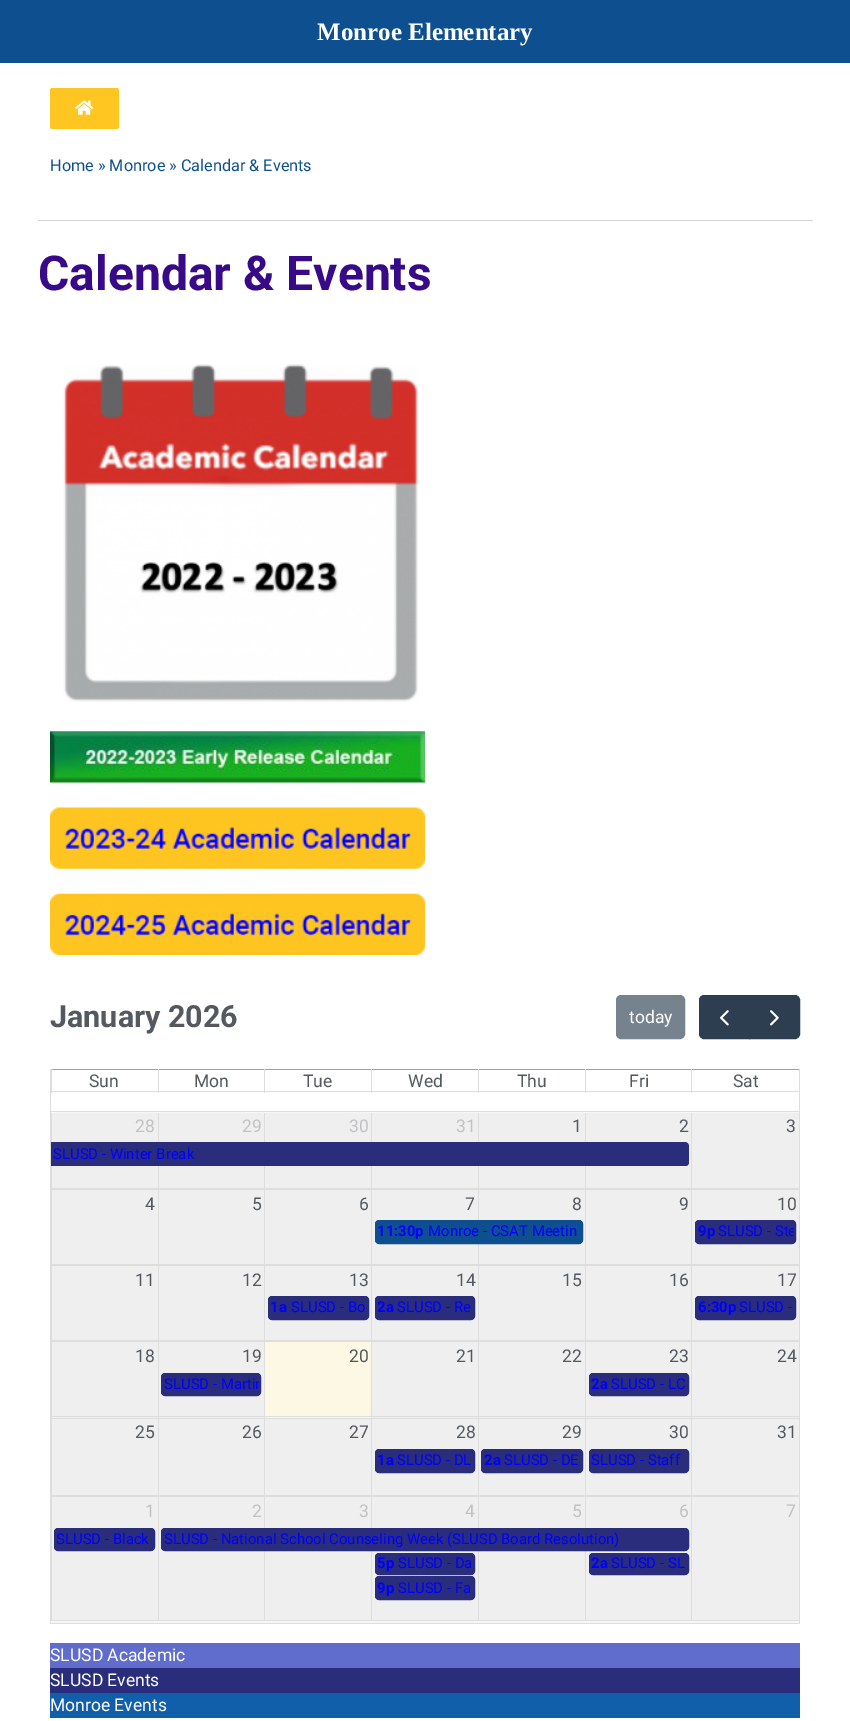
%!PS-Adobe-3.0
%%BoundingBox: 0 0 850 1721
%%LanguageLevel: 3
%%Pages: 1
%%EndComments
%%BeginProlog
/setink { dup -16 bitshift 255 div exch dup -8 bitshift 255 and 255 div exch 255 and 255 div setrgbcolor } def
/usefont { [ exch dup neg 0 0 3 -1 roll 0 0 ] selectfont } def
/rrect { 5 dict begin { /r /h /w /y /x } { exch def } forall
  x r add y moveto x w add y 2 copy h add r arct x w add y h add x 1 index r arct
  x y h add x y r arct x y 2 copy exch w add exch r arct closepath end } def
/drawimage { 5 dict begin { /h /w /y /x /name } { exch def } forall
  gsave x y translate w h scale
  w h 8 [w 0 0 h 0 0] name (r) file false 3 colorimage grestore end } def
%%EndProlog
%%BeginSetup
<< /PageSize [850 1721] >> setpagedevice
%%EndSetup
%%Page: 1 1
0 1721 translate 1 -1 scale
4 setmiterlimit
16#FFFFFF setink
0 0 850 1721 rectfill
16#0E4F90 setink
0 0 850 63 rectfill
/LiberationSerif-Bold 25 usefont
16#FFFFFF setink
317 40 moveto (Monroe Elementary) show
16#FFC521 setink
50 88 69 41 2.5 rrect fill
(img1.raw) 75 100 19 15 drawimage
/Roboto-Regular 16.25 usefont
16#0E4F90 setink
50 171 moveto (Home » Monroe » Calendar & Events) show
16#D2D2D2 setink
38 220 775 1 rectfill
/Roboto-Bold 48 usefont
16#390A87 setink
38 290 moveto (Calendar & Events) show
(img2.raw) 63 364 355 338 drawimage
(img3.raw) 50 731 375 52 drawimage
(img4.raw) 50 807 375 62 drawimage
(img5.raw) 50 893 375 62 drawimage
/Roboto-Bold 30.5 usefont
16#54595F setink
50 1027 moveto (January 2026) show
16#76828D setink
616.5 995.5 68 43 4.5 rrect gsave fill grestore
stroke
/Roboto-Regular 17.5 usefont
16#FFFFFF setink
629 1023 moveto (today) show
16#2C3E50 setink
704 995.5 moveto 749.5 995.5 lineto 749.5 1038.5 lineto 704 1038.5 lineto 701.5 1038.5 699.5 1036.5 699.5 1034 curveto 699.5 1000 lineto 699.5 997.5 701.5 995.5 704 995.5 curveto closepath gsave fill grestore
stroke
(img6.raw) 720 1010 9 16 drawimage
749.5 995.5 moveto 795 995.5 lineto 797.5 995.5 799.5 997.5 799.5 1000 curveto 799.5 1034 lineto 799.5 1036.5 797.5 1038.5 795 1038.5 curveto 749.5 1038.5 lineto closepath gsave fill grestore
stroke
(img7.raw) 770 1010 9 16 drawimage
[
    [51 1069 749 1 16#A0A0A0]
    [371 1069 2 1 16#909090]
    [691 1069 2 1 16#909090]
    [799 1069 1 24 16#DDDDDD]
    [691 1091 109 1 16#DDDDDD]
    [691 1069 1 24 16#DDDDDD]
    [585 1091 108 1 16#DDDDDD]
    [585 1069 1 24 16#DDDDDD]
    [478 1091 108 1 16#DDDDDD]
    [478 1069 1 24 16#DDDDDD]
    [371 1091 108 1 16#DDDDDD]
    [371 1069 1 24 16#DDDDDD]
    [264 1091 109 1 16#DDDDDD]
    [264 1069 1 24 16#DDDDDD]
    [158 1091 107 1 16#DDDDDD]
    [158 1069 1 24 16#DDDDDD]
    [51 1091 108 1 16#DDDDDD]
    [51 1069 1 24 16#DDDDDD]
] { aload pop setink rectfill } forall
16#54595F setink
[
    [(Sun) 89 1087]
    [(Mon) 194 1087]
    [(Tue) 303 1087]
    [(Wed) 408 1087]
    [(Thu) 517 1087]
    [(Fri) 629 1087]
    [(Sat) 733 1087]
] { aload pop moveto show } forall
[
    [51 1112 748 511 16#F7F7F7]
    [50 1111 750 1 16#DDDDDD]
    [799 1093 1 531 16#DDDDDD]
    [50 1623 750 1 16#DDDDDD]
    [50 1069 1 555 16#DDDDDD]
    [52 1113 106 75 16#EFEFEF]
    [691 1188 108 2 16#DDDDDD]
    [586 1113 213 75 16#EFEFEF]
    [691 1113 1 76 16#DDDDDD]
    [585 1188 108 1 16#DDDDDD]
    [585 1113 1 76 16#DDDDDD]
    [478 1188 108 1 16#DDDDDD]
    [478 1113 1 76 16#DDDDDD]
    [371 1188 108 1 16#DDDDDD]
    [371 1113 1 76 16#DDDDDD]
    [264 1188 109 1 16#DDDDDD]
    [264 1113 1 76 16#DDDDDD]
    [158 1188 107 1 16#DDDDDD]
    [158 1113 1 76 16#DDDDDD]
    [51 1188 108 1 16#DDDDDD]
    [51 1113 1 76 16#DDDDDD]
    [159 1113 105 75 16#EFEFEF]
    [265 1113 106 75 16#EFEFEF]
    [372 1113 106 75 16#EFEFEF]
    [479 1113 106 75 16#EFEFEF]
] { aload pop setink rectfill } forall
16#C1C2C4 setink
[
    [(28) 135 1132]
    [(29) 242 1132]
    [(30) 349 1132]
    [(31) 456 1132]
] { aload pop moveto show } forall
16#54595F setink
[
    [(1) 572 1132]
    [(2) 679 1132]
    [(3) 786 1132]
] { aload pop moveto show } forall
16#2A2D7C setink
51 1144 moveto 685.5 1144 lineto 687 1144 688 1145 688 1146.5 curveto 688 1162.5 lineto 688 1164 687 1165 685.5 1165 curveto 51 1165 lineto closepath fill
51 1142 moveto 685 1142 lineto 687 1142 689 1144 689 1146 curveto 689 1162 lineto 689 1165 687 1166 685 1166 curveto 51 1166 lineto closepath 51 1144 moveto 685 1144 lineto 686 1144 688 1145 688 1146 curveto 688 1162 lineto 688 1164 686 1165 685 1165 curveto 51 1165 lineto closepath eofill
/Roboto-Regular 14.9 usefont
16#0000FF setink
53 1159 moveto (SLUSD - Winter Break) show
[
    [52 1190 106 74 16#EFEFEF]
    [586 1190 213 74 16#EFEFEF]
    [691 1264 108 2 16#DDDDDD]
    [691 1189 1 76 16#DDDDDD]
    [585 1189 108 1 16#DDDDDD]
    [585 1264 108 1 16#DDDDDD]
    [585 1189 1 76 16#DDDDDD]
    [478 1189 108 1 16#DDDDDD]
    [478 1264 108 1 16#DDDDDD]
    [478 1189 1 76 16#DDDDDD]
    [371 1189 108 1 16#DDDDDD]
    [371 1264 108 1 16#DDDDDD]
    [371 1189 1 76 16#DDDDDD]
    [264 1189 109 1 16#DDDDDD]
    [264 1264 109 1 16#DDDDDD]
    [264 1189 1 76 16#DDDDDD]
    [158 1189 107 1 16#DDDDDD]
    [158 1264 107 1 16#DDDDDD]
    [158 1189 1 76 16#DDDDDD]
    [51 1189 108 1 16#DDDDDD]
    [51 1264 108 1 16#DDDDDD]
    [51 1189 1 76 16#DDDDDD]
    [159 1190 105 74 16#EFEFEF]
    [265 1190 106 74 16#EFEFEF]
    [372 1190 106 74 16#EFEFEF]
    [479 1190 106 74 16#EFEFEF]
] { aload pop setink rectfill } forall
/Roboto-Regular 17.5 usefont
16#54595F setink
[
    [(4) 145 1210]
    [(5) 252 1210]
    [(6) 359 1210]
    [(7) 465 1210]
    [(8) 572 1210]
    [(9) 679 1210]
    [(10) 777 1210]
] { aload pop moveto show } forall
16#0E4F90 setink
375.5 1220.5 207 23 3.5 rrect gsave fill grestore
stroke
/Roboto-Bold 14.9 usefont
16#0000FF setink
377 1236 moveto (11:30p) show
/Roboto-Regular 14.9 usefont
428 1236 moveto (Monroe - CSAT Meetin) show
16#2A2D7C setink
695.5 1220.5 100 23 3.5 rrect gsave fill grestore
stroke
/Roboto-Bold 14.9 usefont
16#0000FF setink
698 1236 moveto (9p) show
gsave
698 1221 96 22 rectclip
/Roboto-Regular 14.9 usefont
718 1236 moveto (SLUSD - Ste) show
grestore
[
    [52 1266 106 74 16#EFEFEF]
    [586 1266 213 74 16#EFEFEF]
    [691 1340 108 2 16#DDDDDD]
    [691 1265 1 76 16#DDDDDD]
    [585 1265 108 1 16#DDDDDD]
    [585 1340 108 1 16#DDDDDD]
    [585 1265 1 76 16#DDDDDD]
    [478 1265 108 1 16#DDDDDD]
    [478 1340 108 1 16#DDDDDD]
    [478 1265 1 76 16#DDDDDD]
    [371 1265 108 1 16#DDDDDD]
    [371 1340 108 1 16#DDDDDD]
    [371 1265 1 76 16#DDDDDD]
    [264 1265 109 1 16#DDDDDD]
    [264 1340 109 1 16#DDDDDD]
    [264 1265 1 76 16#DDDDDD]
    [158 1265 107 1 16#DDDDDD]
    [158 1340 107 1 16#DDDDDD]
    [158 1265 1 76 16#DDDDDD]
    [51 1265 108 1 16#DDDDDD]
    [51 1340 108 1 16#DDDDDD]
    [51 1265 1 76 16#DDDDDD]
    [159 1266 105 74 16#EFEFEF]
    [265 1266 106 74 16#EFEFEF]
    [372 1266 106 74 16#EFEFEF]
    [479 1266 106 74 16#EFEFEF]
] { aload pop setink rectfill } forall
/Roboto-Regular 17.5 usefont
16#54595F setink
[
    [(11) 135 1286]
    [(12) 242 1286]
    [(13) 349 1286]
    [(14) 456 1286]
    [(15) 562 1286]
    [(16) 669 1286]
    [(17) 777 1286]
] { aload pop moveto show } forall
16#2A2D7C setink
268.5 1296.5 100 23 3.5 rrect gsave fill grestore
stroke
/Roboto-Bold 14.9 usefont
16#0000FF setink
270 1312 moveto (1a) show
/Roboto-Regular 14.9 usefont
291 1312 moveto (SLUSD - Bo) show
16#2A2D7C setink
375.5 1296.5 99 23 3.5 rrect gsave fill grestore
stroke
gsave
378 1298 95 21 rectclip
/Roboto-Bold 14.9 usefont
16#0000FF setink
377 1312 moveto (2a) show
grestore
16#0000FF setink
397 1312 moveto (SLUSD - Re) show
16#2A2D7C setink
695.5 1296.5 100 23 3.5 rrect gsave fill grestore
stroke
/Roboto-Bold 14.9 usefont
16#0000FF setink
698 1312 moveto (6:30p) show
/Roboto-Regular 14.9 usefont
739 1312 moveto (SLUSD -) show
[
    [52 1342 106 76 16#EFEFEF]
    [586 1342 213 76 16#EFEFEF]
    [691 1416 108 1 16#DDDDDD]
    [691 1341 1 77 16#DDDDDD]
    [585 1341 108 1 16#DDDDDD]
    [585 1416 108 1 16#DDDDDD]
    [585 1341 1 77 16#DDDDDD]
    [478 1341 108 1 16#DDDDDD]
    [479 1342 106 76 16#EFEFEF]
    [478 1416 108 1 16#DDDDDD]
    [478 1341 1 77 16#DDDDDD]
    [371 1341 108 1 16#DDDDDD]
    [372 1342 106 76 16#EFEFEF]
    [371 1416 108 1 16#DDDDDD]
    [371 1341 1 77 16#DDDDDD]
    [264 1341 109 1 16#DDDDDD]
    [265 1342 106 76 16#FCF8E3]
    [264 1416 109 1 16#DDDDDD]
    [264 1341 1 77 16#DDDDDD]
    [158 1341 107 1 16#DDDDDD]
    [159 1342 105 76 16#EFEFEF]
    [158 1416 107 1 16#DDDDDD]
    [158 1341 1 77 16#DDDDDD]
    [51 1341 108 1 16#DDDDDD]
    [51 1416 108 1 16#DDDDDD]
    [51 1341 1 77 16#DDDDDD]
] { aload pop setink rectfill } forall
/Roboto-Regular 17.5 usefont
16#54595F setink
[
    [(18) 135 1362]
    [(19) 242 1362]
    [(20) 349 1362]
    [(21) 456 1362]
    [(22) 562 1362]
    [(23) 669 1362]
    [(24) 777 1362]
] { aload pop moveto show } forall
16#2A2D7C setink
161.5 1373.5 99 22 3.5 rrect gsave fill grestore
stroke
gsave
164 1374 95 21 rectclip
/Roboto-Regular 14.9 usefont
16#0000FF setink
164 1389 moveto (SLUSD - Martin) show
grestore
589.5 1373.5 99 22 3.5 rrect gsave fill grestore
stroke
/Roboto-Bold 14.9 usefont
16#0000FF setink
591 1389 moveto (2a) show
/Roboto-Regular 14.9 usefont
611 1389 moveto (SLUSD - LC) show
[
    [52 1419 106 76 16#EFEFEF]
    [691 1418 108 1 16#DDDDDD]
    [586 1419 213 76 16#EFEFEF]
    [691 1495 108 2 16#DDDDDD]
    [691 1418 1 78 16#DDDDDD]
    [585 1418 108 1 16#DDDDDD]
    [585 1495 108 1 16#DDDDDD]
    [585 1418 1 78 16#DDDDDD]
    [478 1418 108 1 16#DDDDDD]
    [478 1495 108 1 16#DDDDDD]
    [478 1418 1 78 16#DDDDDD]
    [371 1418 108 1 16#DDDDDD]
    [371 1495 108 1 16#DDDDDD]
    [371 1418 1 78 16#DDDDDD]
    [264 1418 109 1 16#DDDDDD]
    [264 1495 109 1 16#DDDDDD]
    [264 1418 1 78 16#DDDDDD]
    [158 1418 107 1 16#DDDDDD]
    [158 1495 107 1 16#DDDDDD]
    [158 1418 1 78 16#DDDDDD]
    [51 1418 108 1 16#DDDDDD]
    [51 1495 108 1 16#DDDDDD]
    [51 1418 1 78 16#DDDDDD]
    [159 1419 105 76 16#EFEFEF]
    [265 1419 106 76 16#EFEFEF]
    [372 1419 106 76 16#EFEFEF]
    [479 1419 106 76 16#EFEFEF]
] { aload pop setink rectfill } forall
/Roboto-Regular 17.5 usefont
16#54595F setink
[
    [(25) 135 1438]
    [(26) 242 1438]
    [(27) 349 1438]
    [(28) 456 1438]
    [(29) 562 1438]
    [(30) 669 1438]
    [(31) 777 1438]
] { aload pop moveto show } forall
16#2A2D7C setink
375.5 1449.5 99 23 3.5 rrect gsave fill grestore
stroke
/Roboto-Bold 14.9 usefont
16#0000FF setink
377 1465 moveto (1a) show
/Roboto-Regular 14.9 usefont
397 1465 moveto (SLUSD - DL) show
16#2A2D7C setink
481.5 1449.5 101 23 3.5 rrect gsave fill grestore
stroke
/Roboto-Bold 14.9 usefont
16#0000FF setink
484 1465 moveto (2a) show
/Roboto-Regular 14.9 usefont
504 1465 moveto (SLUSD - DE) show
16#2A2D7C setink
589.5 1449.5 99 23 3.5 rrect gsave fill grestore
stroke
16#0000FF setink
591 1465 moveto (SLUSD - Staff) show
[
    [52 1497 106 123 16#EFEFEF]
    [586 1497 213 123 16#EFEFEF]
    [691 1620 108 1 16#DDDDDD]
    [691 1496 1 125 16#DDDDDD]
    [585 1496 108 1 16#DDDDDD]
    [585 1620 108 1 16#DDDDDD]
    [585 1496 1 125 16#DDDDDD]
    [478 1496 108 1 16#DDDDDD]
    [478 1620 108 1 16#DDDDDD]
    [478 1496 1 125 16#DDDDDD]
    [371 1496 108 1 16#DDDDDD]
    [371 1620 108 1 16#DDDDDD]
    [371 1496 1 125 16#DDDDDD]
    [264 1496 109 1 16#DDDDDD]
    [264 1620 109 1 16#DDDDDD]
    [264 1496 1 125 16#DDDDDD]
    [158 1496 107 1 16#DDDDDD]
    [158 1620 107 1 16#DDDDDD]
    [158 1496 1 125 16#DDDDDD]
    [51 1496 108 1 16#DDDDDD]
    [51 1620 108 1 16#DDDDDD]
    [51 1496 1 125 16#DDDDDD]
    [159 1497 105 123 16#EFEFEF]
    [265 1497 106 123 16#EFEFEF]
    [372 1497 106 123 16#EFEFEF]
    [479 1497 106 123 16#EFEFEF]
] { aload pop setink rectfill } forall
/Roboto-Regular 17.5 usefont
16#C1C2C4 setink
[
    [(1) 145 1517]
    [(2) 252 1517]
    [(3) 359 1517]
    [(4) 465 1517]
    [(5) 572 1517]
    [(6) 679 1517]
    [(7) 786 1517]
] { aload pop moveto show } forall
16#2A2D7C setink
54.5 1528.5 100 22 3.5 rrect gsave fill grestore
stroke
/Roboto-Regular 14.9 usefont
16#0000FF setink
56 1544 moveto (SLUSD - Black) show
16#2A2D7C setink
161.5 1528.5 527 22 3.5 rrect gsave fill grestore
stroke
16#0000FF setink
164 1544 moveto (SLUSD - National School Counseling Week \(SLUSD Board Resolution\)) show
16#2A2D7C setink
375.5 1553.5 99 21 3.5 rrect gsave fill grestore
stroke
/Roboto-Bold 14.9 usefont
16#0000FF setink
377 1568 moveto (5p) show
/Roboto-Regular 14.9 usefont
398 1568 moveto (SLUSD - Da) show
16#2A2D7C setink
589.5 1553.5 99 21 3.5 rrect gsave fill grestore
stroke
/Roboto-Bold 14.9 usefont
16#0000FF setink
591 1568 moveto (2a) show
/Roboto-Regular 14.9 usefont
611 1568 moveto (SLUSD - SL) show
16#2A2D7C setink
375.5 1576.5 99 23 3.5 rrect gsave fill grestore
stroke
/Roboto-Bold 14.9 usefont
16#0000FF setink
377 1593 moveto (9p) show
/Roboto-Regular 14.9 usefont
398 1593 moveto (SLUSD - Fa) show
16#616DCD setink
50 1643 750 25 rectfill
/Roboto-Regular 17.5 usefont
16#FFFFFF setink
50 1661 moveto (SLUSD Academic) show
16#2A2D7C setink
50 1668 750 25 rectfill
16#FFFFFF setink
50 1686 moveto (SLUSD Events) show
16#115EAB setink
50 1693 750 25 rectfill
16#FFFFFF setink
50 1711 moveto (Monroe Events) show
showpage
%%EOF
